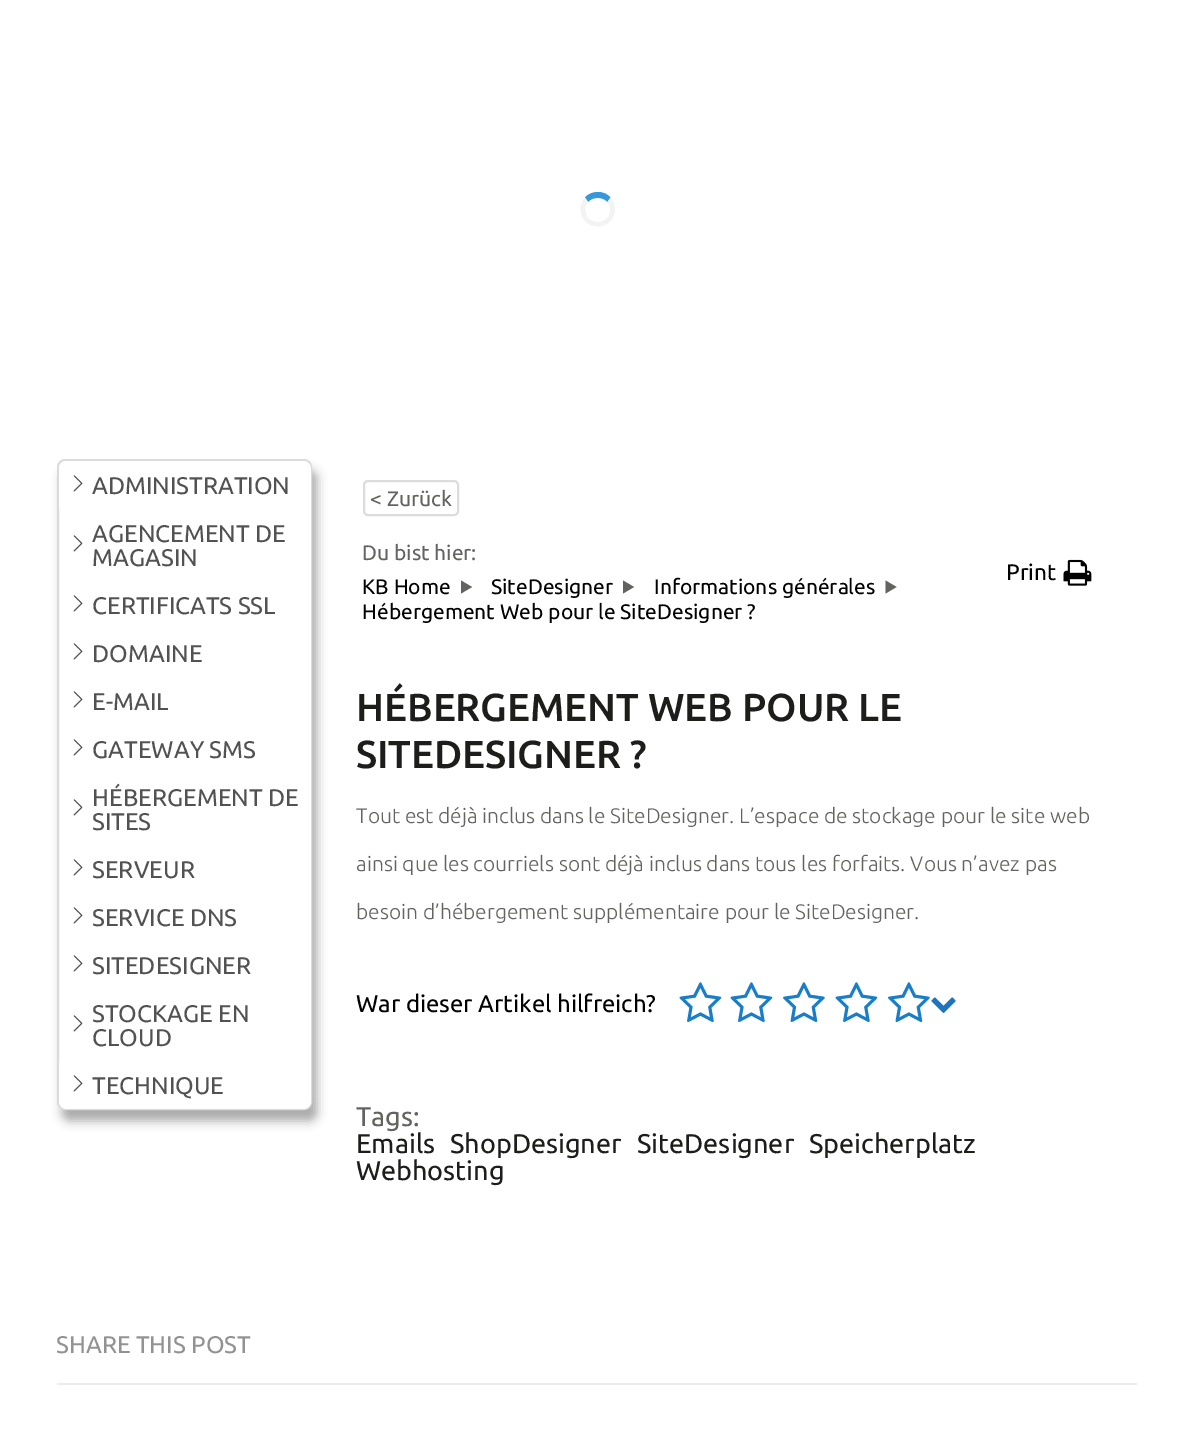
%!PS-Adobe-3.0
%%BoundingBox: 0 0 1192 1449
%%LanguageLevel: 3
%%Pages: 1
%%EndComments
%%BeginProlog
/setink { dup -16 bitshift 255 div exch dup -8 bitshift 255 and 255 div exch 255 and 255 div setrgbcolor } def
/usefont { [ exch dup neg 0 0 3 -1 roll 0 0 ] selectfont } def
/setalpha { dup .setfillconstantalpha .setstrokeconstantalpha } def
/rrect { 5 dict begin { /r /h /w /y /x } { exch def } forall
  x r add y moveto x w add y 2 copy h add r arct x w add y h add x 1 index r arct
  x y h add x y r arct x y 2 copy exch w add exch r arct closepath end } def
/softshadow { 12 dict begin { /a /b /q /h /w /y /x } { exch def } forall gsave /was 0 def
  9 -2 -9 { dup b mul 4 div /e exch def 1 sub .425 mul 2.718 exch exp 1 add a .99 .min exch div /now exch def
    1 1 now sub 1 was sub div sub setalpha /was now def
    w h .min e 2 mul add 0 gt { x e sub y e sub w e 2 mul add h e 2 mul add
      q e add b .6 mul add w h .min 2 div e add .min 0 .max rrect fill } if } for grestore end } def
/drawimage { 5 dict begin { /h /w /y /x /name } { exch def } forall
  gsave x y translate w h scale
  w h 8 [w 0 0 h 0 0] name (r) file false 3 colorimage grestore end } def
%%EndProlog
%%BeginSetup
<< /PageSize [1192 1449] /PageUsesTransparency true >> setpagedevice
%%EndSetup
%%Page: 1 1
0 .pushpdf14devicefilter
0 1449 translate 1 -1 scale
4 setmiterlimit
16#FFFFFF setink
0 0 1192 1449 rectfill
16#3498DB setink
598 192 moveto 592.5 192 588 194 585 197.5 curveto 588 202 lineto 592.5 196.5 603 196.5 607.5 202 curveto 610.5 197.5 lineto 607.5 194 603 192 598 192 curveto closepath fill
16#F3F3F3 setink
610.5 197.5 moveto 616.5 204.5 616.5 215 610 221.5 curveto 607 218.5 lineto 611 214 611.5 206.5 607.5 202 curveto closepath fill
610 221.5 moveto 603.5 228 592 228 585.5 221.5 curveto 588.5 218.5 lineto 593.5 223 602 223.5 607 218.5 curveto closepath fill
585.5 221.5 moveto 579 215 579 204.5 585 197.5 curveto 588 202 lineto 584 206.5 584.5 214 588.5 218.5 curveto closepath fill
16#000000 setink
62 470 255 651 8 5 0.34 softshadow
16#FFFFFF setink
58 460 253 649 7 rrect gsave fill grestore
16#DBDBDB setink
2 setlinewidth
stroke
16#FFFFFF setink
67 461 moveto 303 461 lineto 307.5 461 311 464.5 311 469 curveto 311 509 lineto 59 509 lineto 59 469 lineto 59 464.5 62.5 461 67 461 curveto closepath fill
(img1.raw) 73 475 10 17 drawimage
/Ubuntu-Regular 24 usefont
16#525252 setink
92 494 moveto (ADMINISTRATION) show
16#FFFFFF setink
310 509 1 552 rectfill
(img1.raw) 73 535 10 17 drawimage
16#525252 setink
92 542 moveto (AGENCEMENT DE) show
92 566 moveto (MAGASIN) show
(img1.raw) 73 595 10 17 drawimage
92 614 moveto (CERTIFICATS SSL) show
(img1.raw) 73 643 10 17 drawimage
92 662 moveto (DOMAINE) show
(img1.raw) 73 691 10 17 drawimage
92 710 moveto (E-MAIL) show
(img1.raw) 73 739 10 17 drawimage
92 758 moveto (GATEWAY SMS) show
(img1.raw) 73 799 10 17 drawimage
92 806 moveto (HÉBERGEMENT DE) show
92 830 moveto (SITES) show
(img1.raw) 73 859 10 17 drawimage
92 878 moveto (SERVEUR) show
(img1.raw) 73 907 10 17 drawimage
92 926 moveto (SERVICE DNS) show
(img1.raw) 73 955 10 17 drawimage
92 974 moveto (SITEDESIGNER) show
(img1.raw) 73 1015 10 17 drawimage
92 1022 moveto (STOCKAGE EN) show
92 1046 moveto (CLOUD) show
16#FFFFFF setink
59 1061 moveto 311 1061 lineto 311 1101 lineto 311 1105.5 307.5 1109 303 1109 curveto 67 1109 lineto 62.5 1109 59 1105.5 59 1101 curveto closepath fill
(img1.raw) 73 1075 10 17 drawimage
16#525252 setink
92 1094 moveto (TECHNIQUE) show
16#DCDCDC setink
364 481 94 34 4 rrect stroke
/Ubuntu-Regular 21 usefont
16#636362 setink
370 506 moveto (< Zurück) show
362 560 moveto (Du bist hier:) show
16#000000 setink
362 594 moveto (KB Home) show
16#636362 setink
461 580.5 moveto 472 587 lineto 461 593.5 lineto closepath fill
16#000000 setink
491 594 moveto (SiteDesigner) show
16#636362 setink
623 580.5 moveto 634 587 lineto 623 593.5 lineto closepath fill
16#000000 setink
654 594 moveto (Informations générales) show
16#636362 setink
885.5 580.5 moveto 896.5 587 lineto 885.5 593.5 lineto closepath fill
16#000000 setink
362 619 moveto (Hébergement Web pour le SiteDesigner ?) show
/Ubuntu-Regular 22.5 usefont
1006 580 moveto (Print) show
(img2.raw) 1063 559 29 27 drawimage
/Ubuntu-Medium 39 usefont
16#1D1D1B setink
356 721 moveto (HÉBERGEMENT WEB POUR LE) show
356 768 moveto (SITEDESIGNER ?) show
/Ubuntu-Light 21 usefont
16#636362 setink
[
    [(Tout est déjà inclus dans le SiteDesigner. L’espace de stockage pour le site web) 356 823]
    [(ainsi que les courriels sont déjà inclus dans tous les forfaits. Vous n’avez pas) 356 871]
    [(besoin d’hébergement supplémentaire pour le SiteDesigner.) 356 919]
] { aload pop moveto show } forall
/Ubuntu-Regular 24 usefont
16#000000 setink
356 1012 moveto (War dieser Artikel hilfreich?) show
(img3.raw) 679 982 43 41 drawimage
(img3.raw) 730 982 43 41 drawimage
(img4.raw) 783 982 42 41 drawimage
(img3.raw) 835 982 43 41 drawimage
(img4.raw) 888 982 42 41 drawimage
(img5.raw) 931 997 25 16 drawimage
/Ubuntu-Regular 27 usefont
16#636362 setink
356 1126 moveto (Tags:) show
16#1D1D1B setink
[
    [(Emails) 356 1153]
    [(ShopDesigner) 450 1153]
    [(SiteDesigner) 637 1153]
    [(Speicherplatz) 809 1153]
    [(Webhosting) 356 1180]
] { aload pop moveto show } forall
16#EDEDED setink
57 1383 1080 2 rectfill
/Ubuntu-Regular 24 usefont
16#929292 setink
56 1353 moveto (SHARE THIS POST) show
.poppdf14devicefilter showpage
%%EOF
